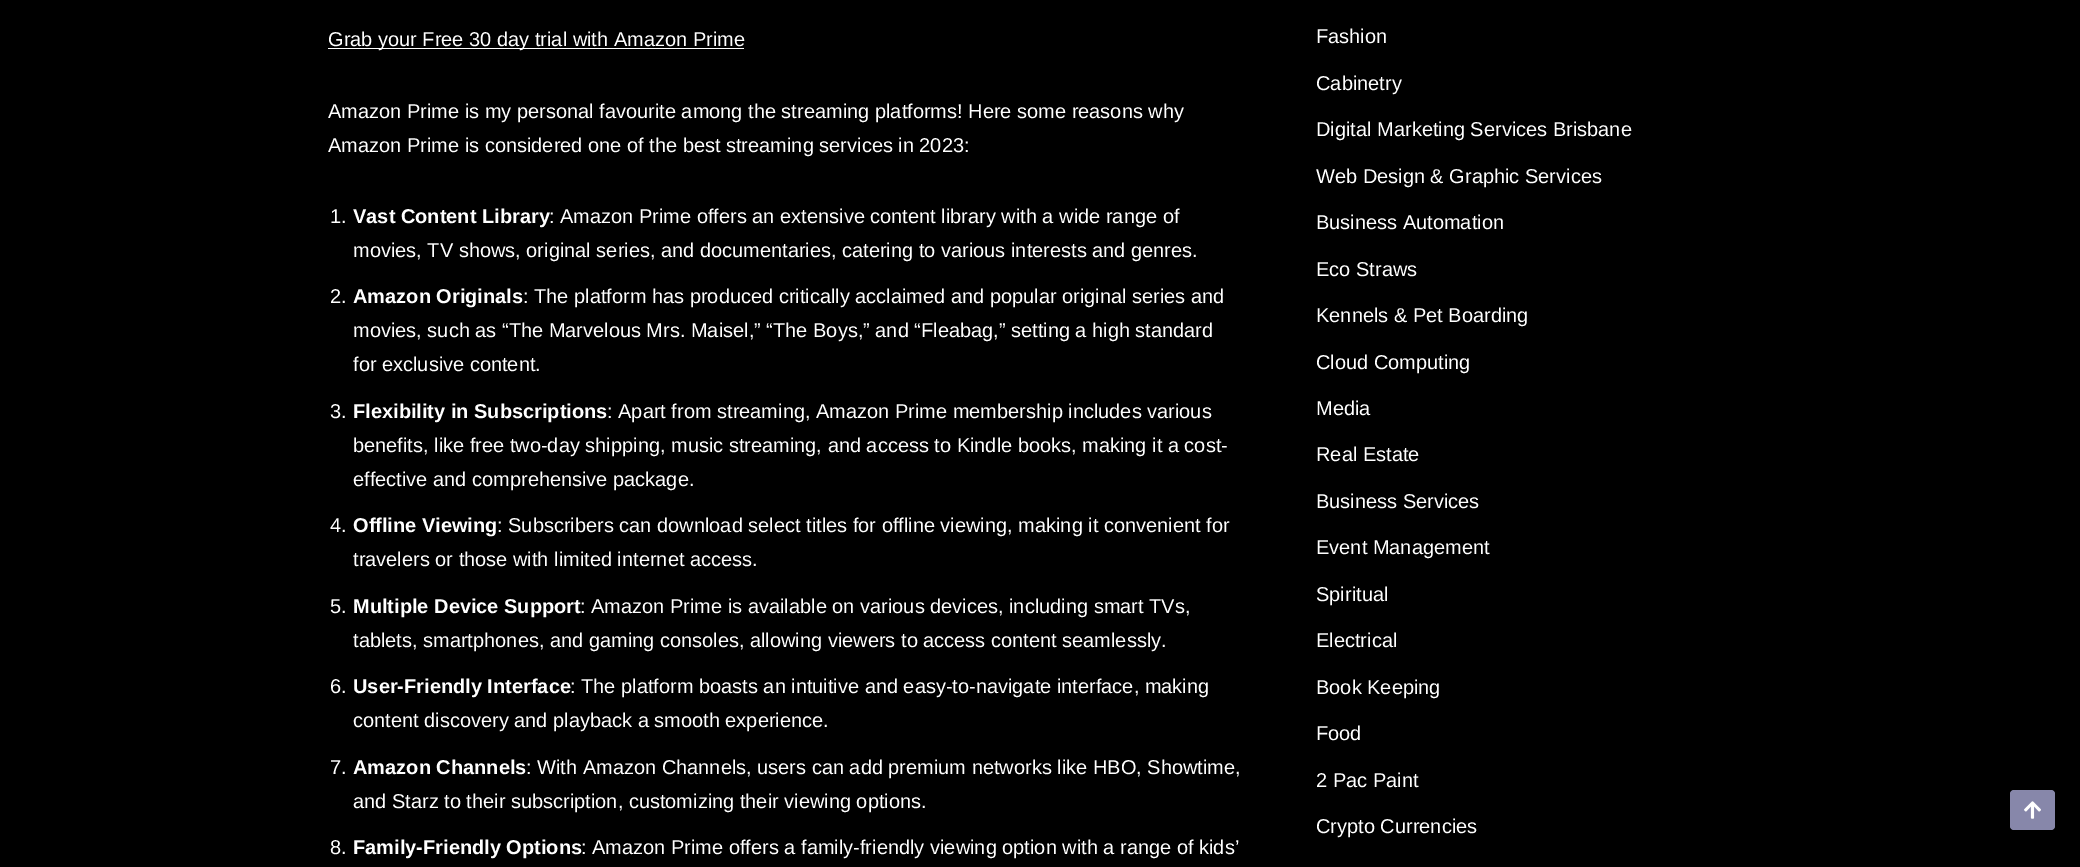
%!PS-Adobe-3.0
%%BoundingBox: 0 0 2080 867
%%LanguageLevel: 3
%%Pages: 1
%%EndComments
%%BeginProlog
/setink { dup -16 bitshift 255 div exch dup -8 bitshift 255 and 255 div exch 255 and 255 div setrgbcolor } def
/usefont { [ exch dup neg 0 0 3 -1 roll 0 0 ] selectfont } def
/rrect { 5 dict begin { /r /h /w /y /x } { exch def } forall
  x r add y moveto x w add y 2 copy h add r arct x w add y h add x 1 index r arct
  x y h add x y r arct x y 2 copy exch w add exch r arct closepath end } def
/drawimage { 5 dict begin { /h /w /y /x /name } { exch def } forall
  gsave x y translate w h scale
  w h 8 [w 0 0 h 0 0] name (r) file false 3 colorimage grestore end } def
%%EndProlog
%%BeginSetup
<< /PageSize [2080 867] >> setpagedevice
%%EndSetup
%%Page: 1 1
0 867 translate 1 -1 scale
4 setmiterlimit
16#000000 setink
0 0 2080 867 rectfill
16#FFFFFF setink
328 48 416 1 rectfill
/LiberationSans-Regular 20 usefont
[
    [(Grab your Free 30 day trial with Amazon Prime) 328 46]
    [(Amazon Prime is my personal favourite among the streaming platforms! Here some reasons why) 328 118]
    [(Amazon Prime is considered one of the best streaming services in 2023:) 328 152]
    [(1.) 330 223]
] { aload pop moveto show } forall
/LiberationSans-Bold 20 usefont
353 223 moveto (Vast Content Library) show
/LiberationSans-Regular 20 usefont
[
    [(: Amazon Prime offers an extensive content library with a wide range of) 549 223]
    [(movies, TV shows, original series, and documentaries, catering to various interests and genres.) 353 257]
    [(2.) 330 303]
] { aload pop moveto show } forall
/LiberationSans-Bold 20 usefont
353 303 moveto (Amazon Originals) show
/LiberationSans-Regular 20 usefont
[
    [(: The platform has produced critically acclaimed and popular original series and) 523 303]
    [(movies, such as “The Marvelous Mrs. Maisel,” “The Boys,” and “Fleabag,” setting a high standard) 353 337]
    [(for exclusive content.) 353 371]
    [(3.) 330 418]
] { aload pop moveto show } forall
/LiberationSans-Bold 20 usefont
353 418 moveto (Flexibility in Subscriptions) show
/LiberationSans-Regular 20 usefont
[
    [(: Apart from streaming, Amazon Prime membership includes various) 607 418]
    [(benefits, like free two-day shipping, music streaming, and access to Kindle books, making it a cost-) 353 452]
    [(effective and comprehensive package.) 353 486]
    [(4.) 330 532]
] { aload pop moveto show } forall
/LiberationSans-Bold 20 usefont
353 532 moveto (Offline Viewing) show
/LiberationSans-Regular 20 usefont
[
    [(: Subscribers can download select titles for offline viewing, making it convenient for) 497 532]
    [(travelers or those with limited internet access.) 353 566]
    [(5.) 330 613]
] { aload pop moveto show } forall
/LiberationSans-Bold 20 usefont
353 613 moveto (Multiple Device Support) show
/LiberationSans-Regular 20 usefont
[
    [(: Amazon Prime is available on various devices, including smart TVs,) 580 613]
    [(tablets, smartphones, and gaming consoles, allowing viewers to access content seamlessly.) 353 647]
    [(6.) 330 693]
] { aload pop moveto show } forall
/LiberationSans-Bold 20 usefont
353 693 moveto (User-Friendly Interface) show
/LiberationSans-Regular 20 usefont
[
    [(: The platform boasts an intuitive and easy-to-navigate interface, making) 570 693]
    [(content discovery and playback a smooth experience.) 353 727]
    [(7.) 330 774]
] { aload pop moveto show } forall
/LiberationSans-Bold 20 usefont
353 774 moveto (Amazon Channels) show
/LiberationSans-Regular 20 usefont
[
    [(: With Amazon Channels, users can add premium networks like HBO, Showtime,) 526 774]
    [(and Starz to their subscription, customizing their viewing options.) 353 808]
    [(8.) 330 854]
] { aload pop moveto show } forall
/LiberationSans-Bold 20 usefont
353 854 moveto (Family-Friendly Options) show
/LiberationSans-Regular 20 usefont
[
    [(: Amazon Prime offers a family-friendly viewing option with a range of kids’) 581 854]
    [(Fashion) 1316 43]
    [(Cabinetry) 1316 90]
    [(Digital Marketing Services Brisbane) 1316 136]
    [(Web Design & Graphic Services) 1316 183]
    [(Business Automation) 1316 229]
    [(Eco Straws) 1316 276]
    [(Kennels & Pet Boarding) 1316 322]
    [(Cloud Computing) 1316 369]
    [(Media) 1316 415]
    [(Real Estate) 1316 461]
    [(Business Services) 1316 508]
    [(Event Management) 1316 554]
    [(Spiritual) 1316 601]
    [(Electrical) 1316 647]
    [(Book Keeping) 1316 694]
    [(Food) 1316 740]
    [(2 Pac Paint) 1316 787]
    [(Crypto Currencies) 1316 833]
] { aload pop moveto show } forall
16#8787AA setink
2010 790 45 40 4 rrect fill
(img1.raw) 2024 801 17 18 drawimage
showpage
%%EOF
